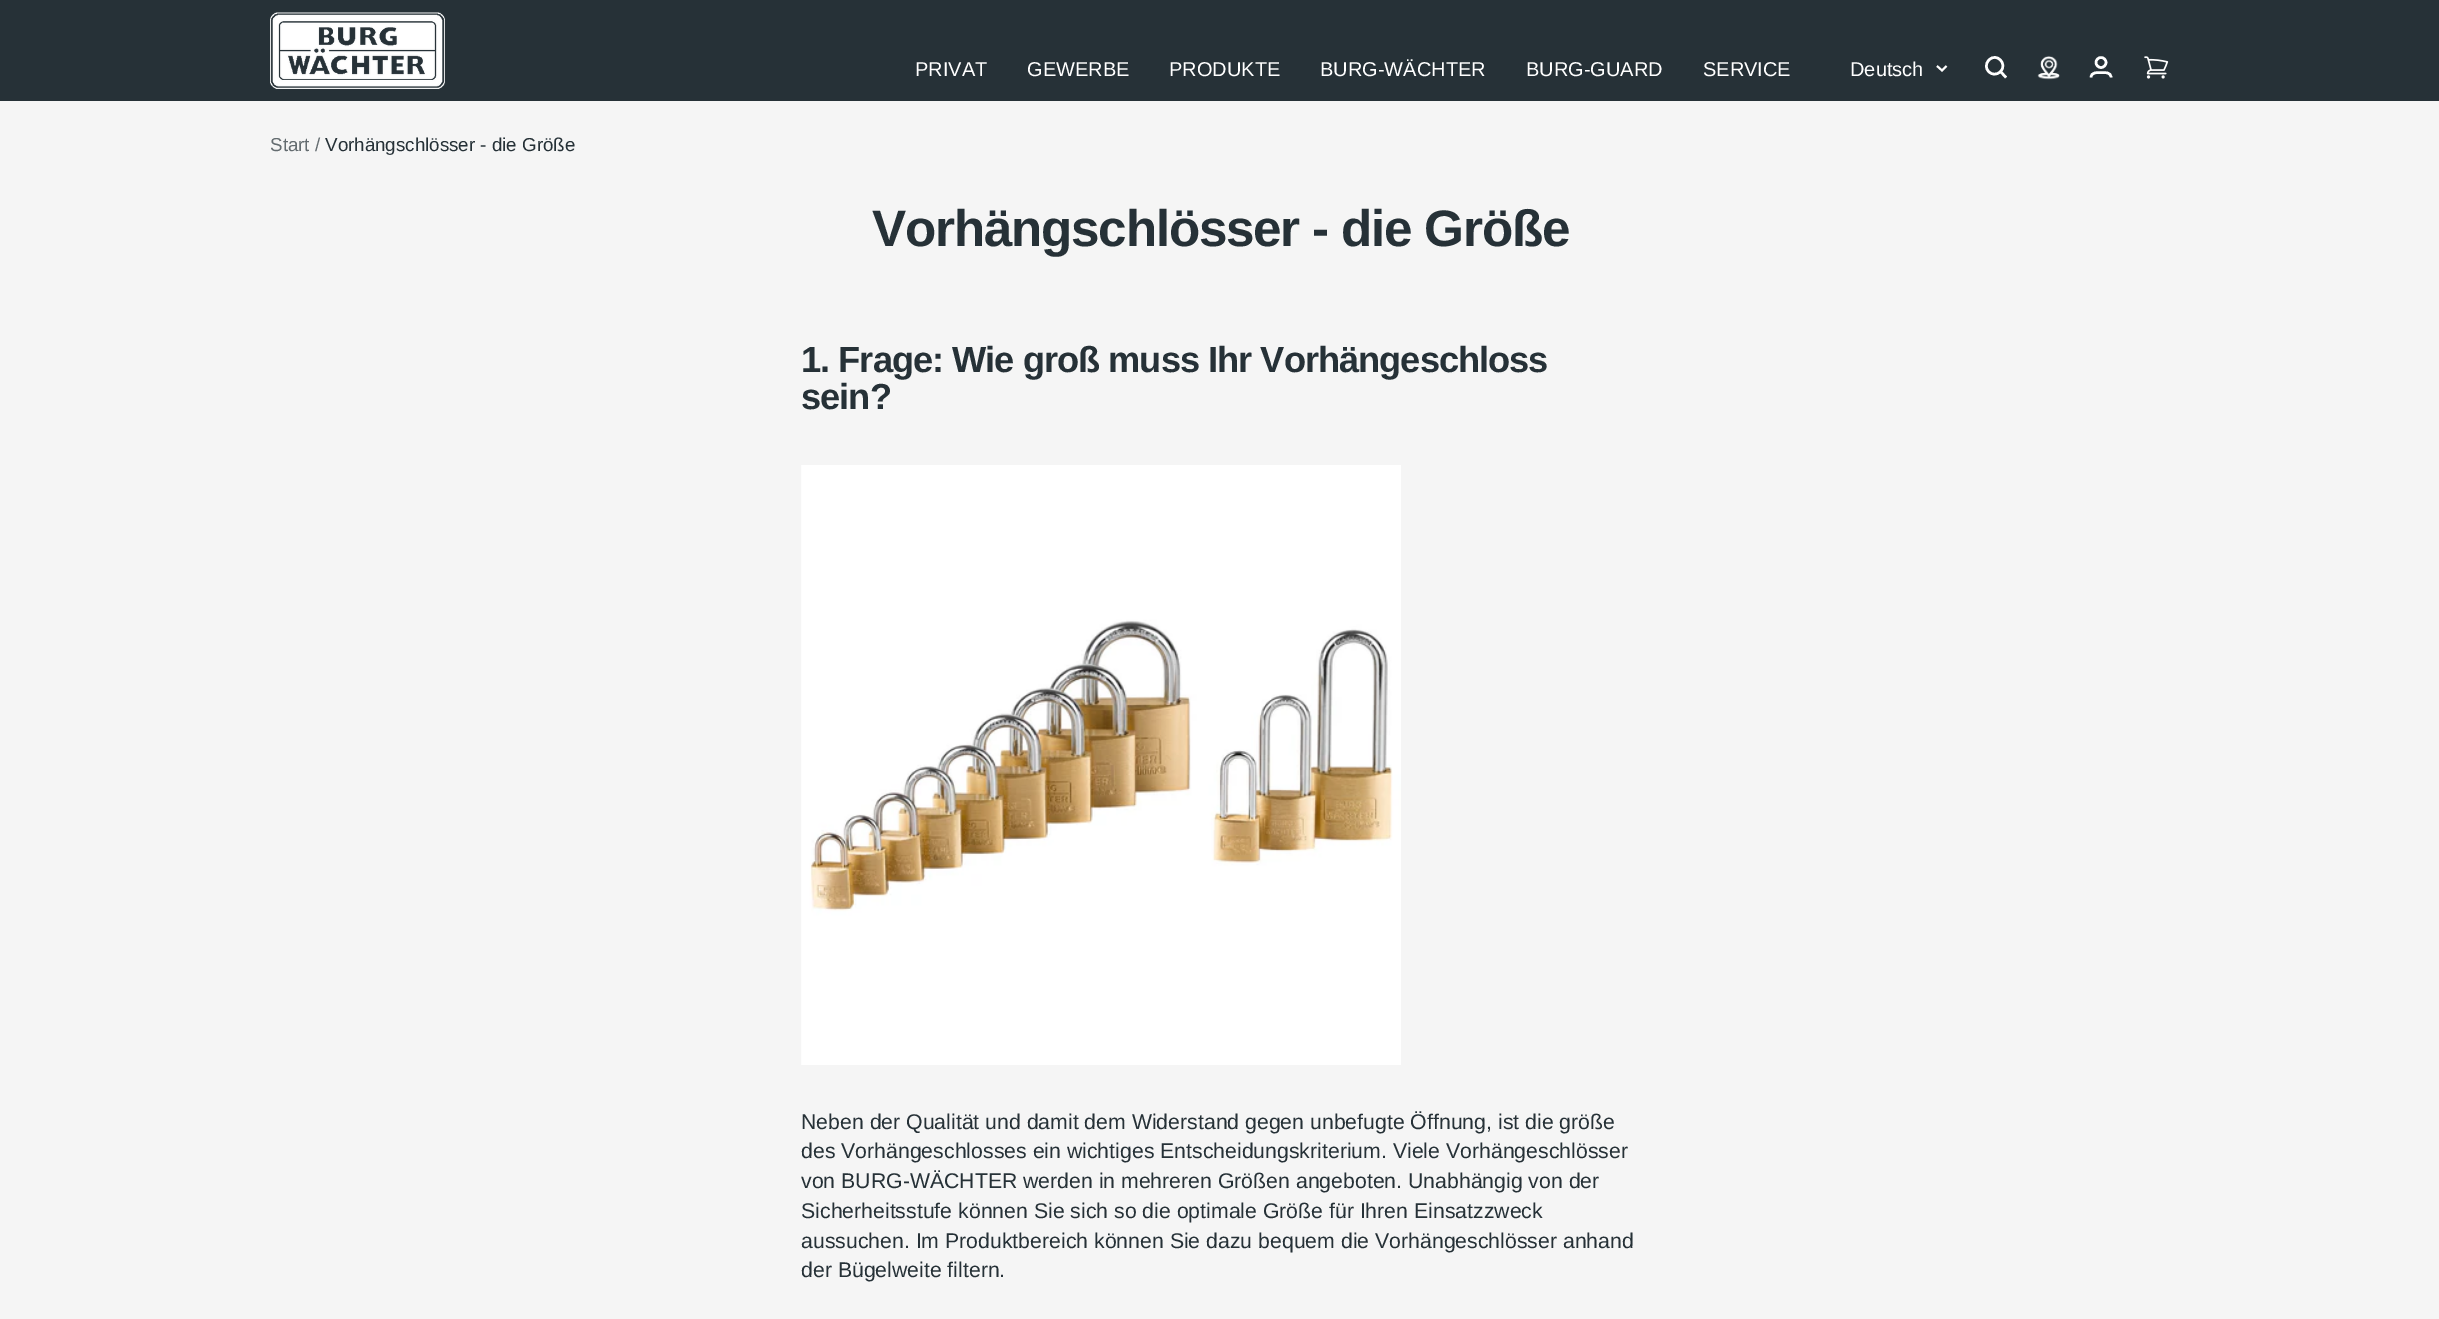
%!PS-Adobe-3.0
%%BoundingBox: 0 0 2439 1319
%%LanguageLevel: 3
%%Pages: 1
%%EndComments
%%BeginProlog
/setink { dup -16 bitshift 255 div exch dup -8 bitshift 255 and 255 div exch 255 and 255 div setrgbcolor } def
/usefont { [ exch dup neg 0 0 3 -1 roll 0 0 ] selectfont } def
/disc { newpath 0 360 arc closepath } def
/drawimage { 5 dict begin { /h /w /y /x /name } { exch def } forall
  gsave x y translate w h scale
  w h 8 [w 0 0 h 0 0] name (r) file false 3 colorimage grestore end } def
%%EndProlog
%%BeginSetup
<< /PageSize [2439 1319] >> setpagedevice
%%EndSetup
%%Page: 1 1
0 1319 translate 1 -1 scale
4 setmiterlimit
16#F5F5F5 setink
0 0 2439 1319 rectfill
16#263137 setink
0 0 2439 101 rectfill
(img1.raw) 270 12 175 77 drawimage
/LiberationSans-Regular 20 usefont
16#FFFFFF setink
[
    [(PRIVAT) 915 76]
    [(GEWERBE) 1027 76]
    [(PRODUKTE) 1169 76]
    [(BURG-WÄCHTER) 1320 76]
    [(BURG-GUARD) 1526 76]
    [(SERVICE) 1703 76]
    [(Deutsch) 1850 76]
] { aload pop moveto show } forall
1.9 setlinewidth
1937 66 moveto 1942 70.5 lineto 1946.5 66 lineto stroke
2.5 setlinewidth
2000.5 71.5 moveto 2008 64 1996.5 52 1989 60 curveto 1981 68 1992.5 79.5 2000.5 71.5 curveto closepath 2000.5 71.5 moveto 2006 77.5 lineto stroke
(img2.raw) 2037 56 23 24 drawimage
2101 62.5 5 disc stroke
2091 77.5 moveto 2091 72 2097.5 72.5 2101 72.5 curveto 2105 72.5 2111 72 2111 77.5 curveto stroke
(img3.raw) 2144 56 25 23 drawimage
/LiberationSans-Regular 18.75 usefont
16#646C70 setink
270 151 moveto (Start /) show
16#263137 setink
325 151 moveto (Vorhängschlösser - die Größe) show
/LiberationSans-Bold 51.25 usefont
872 246 moveto -1.25 0 (Vorhängschlösser - die Größe) ashow
/LiberationSans-Bold 36.25 usefont
801 372 moveto -1 0 (1. Frage: Wie groß muss Ihr Vorhängeschloss) ashow
801 409 moveto -1 0 (sein?) ashow
(img4.raw) 801 465 600 600 drawimage
/LiberationSans-Regular 21.25 usefont
[
    [(Neben der Qualität und damit dem Widerstand gegen unbefugte Öffnung, ist die größe) 801 1129]
    [(des Vorhängeschlosses ein wichtiges Entscheidungskriterium. Viele Vorhängeschlösser) 801 1158]
    [(von BURG-WÄCHTER werden in mehreren Größen angeboten. Unabhängig von der) 801 1188]
    [(Sicherheitsstufe können Sie sich so die optimale Größe für Ihren Einsatzzweck) 801 1218]
    [(aussuchen. Im Produktbereich können Sie dazu bequem die Vorhängeschlösser anhand) 801 1248]
    [(der Bügelweite filtern.) 801 1277]
] { aload pop moveto show } forall
showpage
%%EOF
